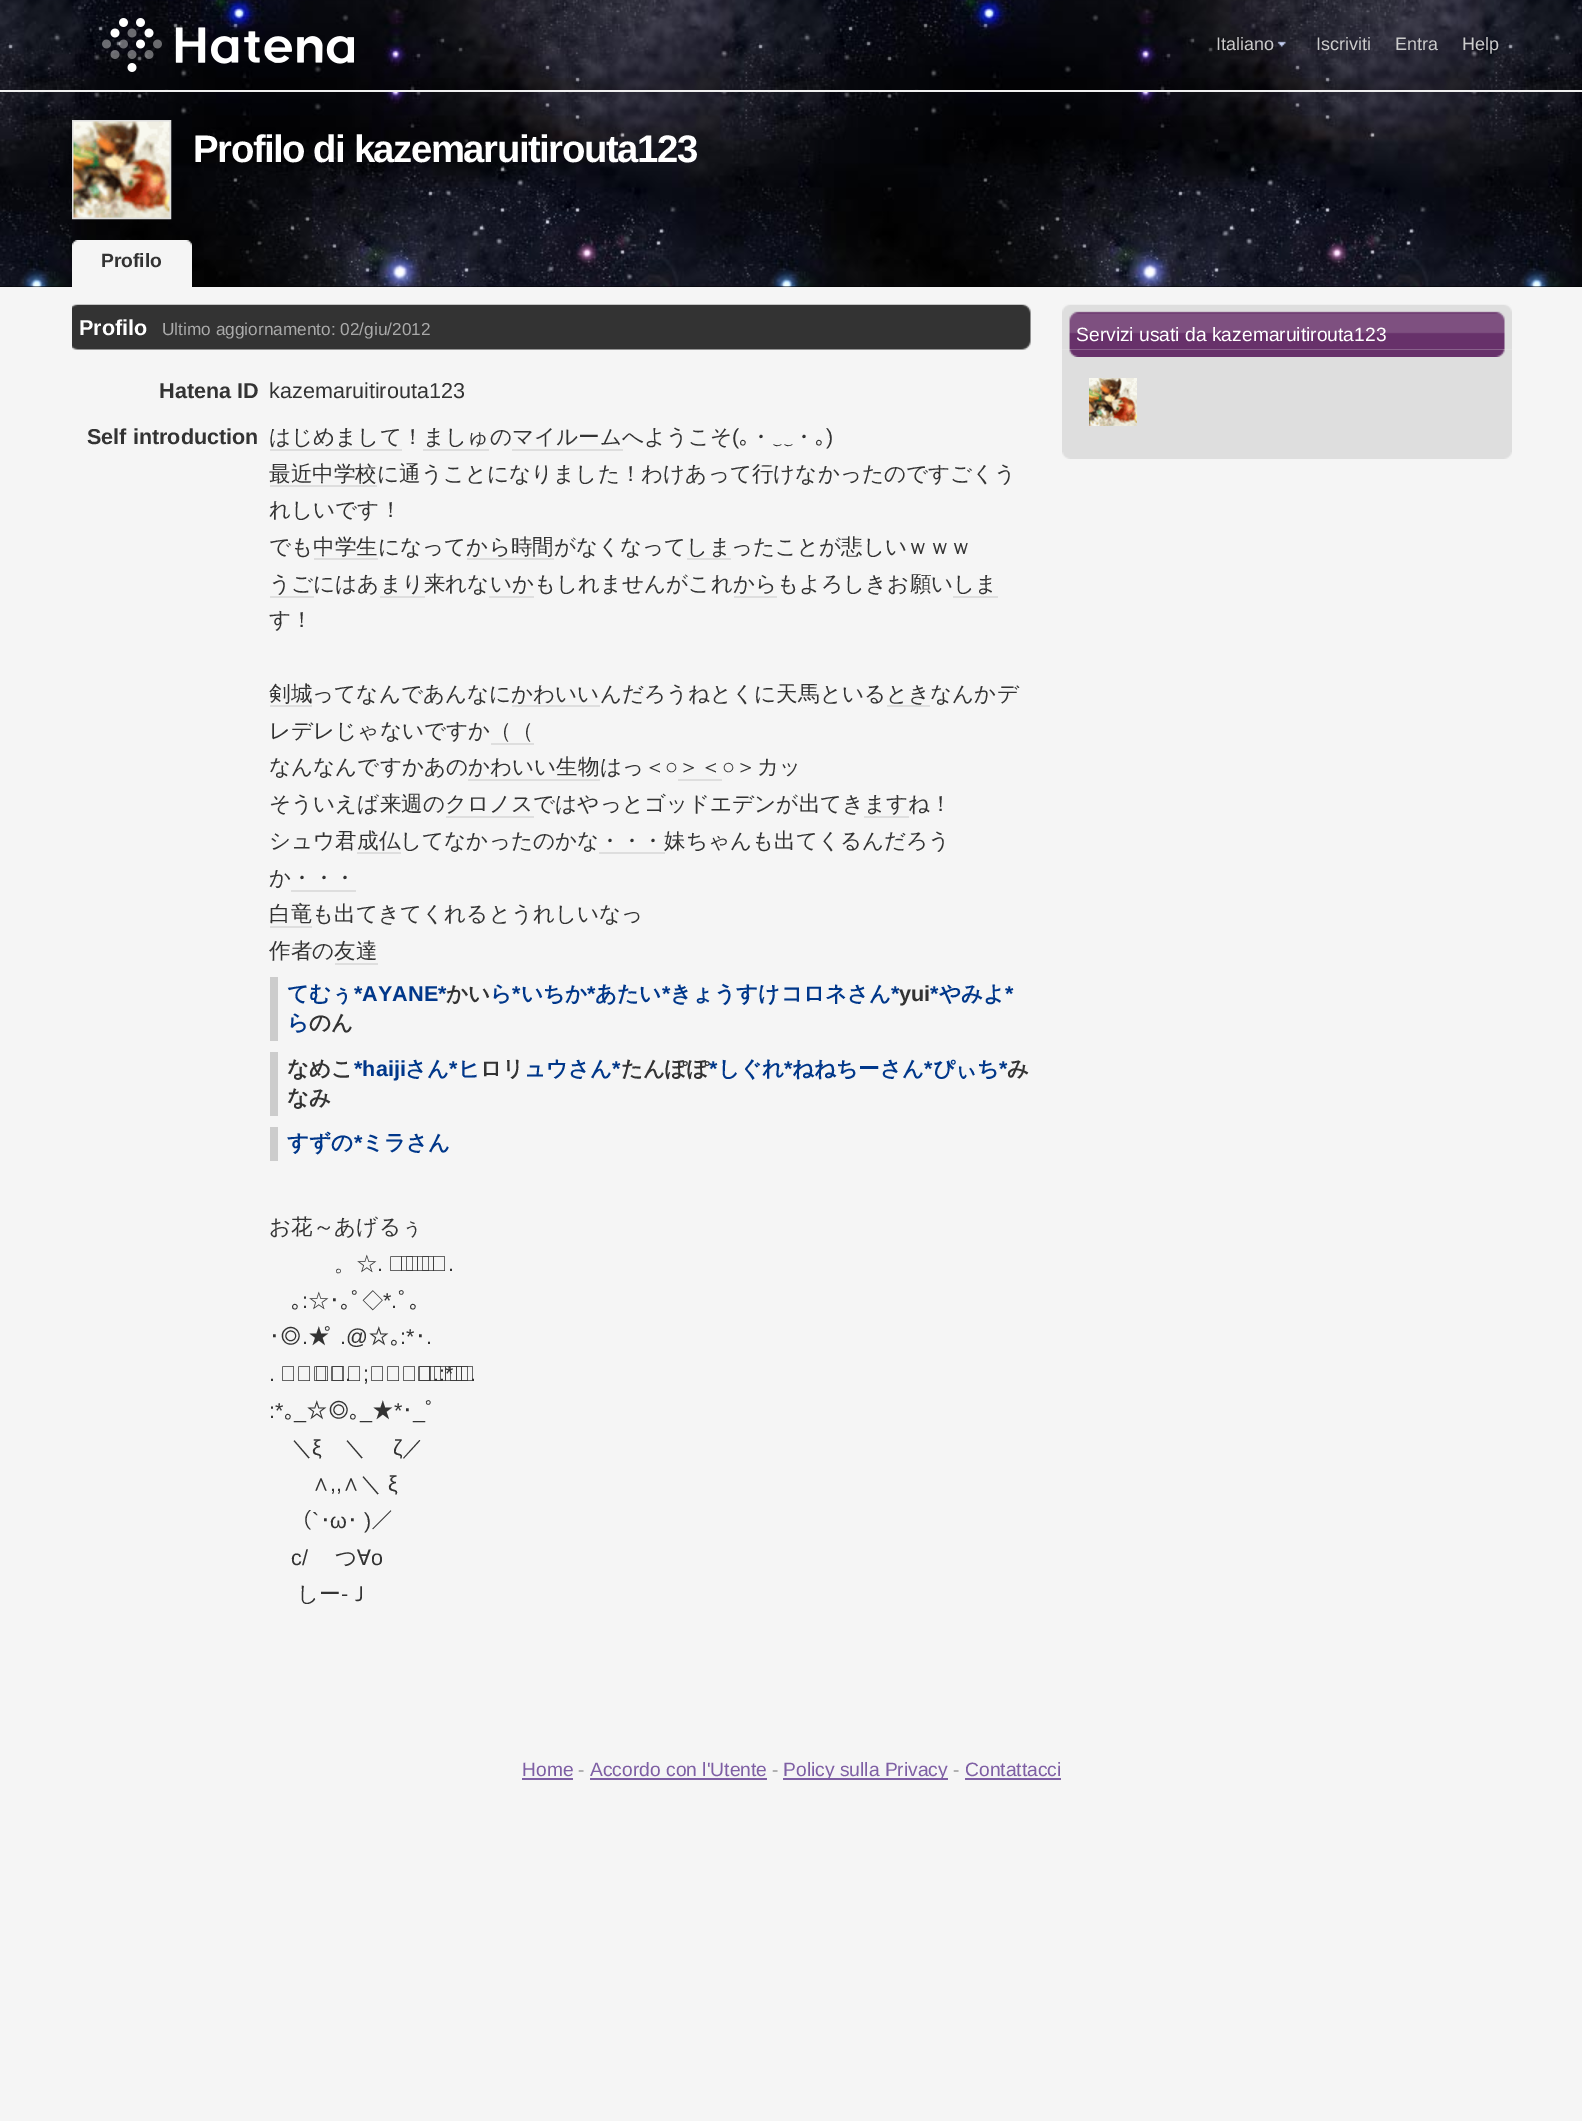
%!PS-Adobe-3.0
%%BoundingBox: 0 0 1582 2121
%%LanguageLevel: 3
%%Pages: 1
%%EndComments
%%BeginProlog
/setink { dup -16 bitshift 255 div exch dup -8 bitshift 255 and 255 div exch 255 and 255 div setrgbcolor } def
/usefont { [ exch dup neg 0 0 3 -1 roll 0 0 ] selectfont } def
/drawimage { 5 dict begin { /h /w /y /x /name } { exch def } forall
  gsave x y translate w h scale
  w h 8 [w 0 0 h 0 0] name (r) file false 3 colorimage grestore end } def
%%EndProlog
%%BeginSetup
<< /PageSize [1582 2121] >> setpagedevice
%%EndSetup
%%Page: 1 1
0 2121 translate 1 -1 scale
4 setmiterlimit
16#F5F5F5 setink
0 0 1582 2121 rectfill
(img1.raw) 0 0 1582 90 drawimage
16#F0F0F0 setink
0 90 1582 2 rectfill
(img2.raw) 102 18 252 54 drawimage
(img3.raw) 1277 41 9 6 drawimage
/LiberationSans-Regular 18 usefont
16#CCCCCC setink
[
    [(Italiano) 1216 50]
    [(Iscriviti) 1316 50]
    [(Entra) 1395 50]
    [(Help) 1462 50]
] { aload pop moveto show } forall
16#000000 setink
0 286 1582 1 rectfill
(img4.raw) 0 92 1582 195 drawimage
16#DEDEDE setink
2 setlinewidth
73 121 97 97 rectstroke
(img5.raw) 73 121 97 97 drawimage
/LiberationSans-Bold 38.4 usefont
16#FFFFFF setink
193 162 moveto -1.5 0 (Profilo di kazemaruitirouta123) ashow
(img6.raw) 72 240 120 45 drawimage
16#F5F5F5 setink
72 285 120 2 rectfill
/LiberationSans-Bold 19.25 usefont
16#333333 setink
101 267 moveto (Profilo) show
(img7.raw) 72 304 959 46 drawimage
/LiberationSans-Bold 21.6 usefont
16#FFFFFF setink
79 335 moveto (Profilo) show
/LiberationSans-Regular 17.25 usefont
16#AAAAAA setink
162 335 moveto (Ultimo aggiornamento: 02/giu/2012) show
/LiberationSans-Bold 21.6 usefont
16#333333 setink
159 398 moveto (Hatena ID) show
/LiberationSans-Regular 21.6 usefont
269 398 moveto (kazemaruitirouta123) show
/LiberationSans-Bold 21.6 usefont
87 444 moveto (Self introduction) show
/WenQuanYiZenHei-Medium 21.6 usefont
269 444 moveto (はじめまして！ましゅのマイルームへようこそ) show
16#DEDEDE setink
270 449 132 2 rectfill
/LiberationSans-Regular 21.6 usefont
16#333333 setink
732 444 moveto (\() show
/WenQuanYiZenHei-Medium 21.6 usefont
750 444 moveto (・) show
793 444 moveto (・) show
/LiberationSans-Regular 21.6 usefont
826 444 moveto (\)) show
/IPAGothic-Regular 21.6 usefont
[
    [(｡) 739 444]
    [(‿‿) 772 444]
    [(｡) 815 444]
] { aload pop moveto show } forall
[
    [423 449 66 2 16#DEDEDE]
    [512 449 111 2 16#DEDEDE]
    [270 485 107 2 16#DEDEDE]
] { aload pop setink rectfill } forall
/WenQuanYiZenHei-Medium 21.6 usefont
16#333333 setink
[
    [(最近中学校に通うことになりました！わけあって行けなかったのですごくう) 269 481]
    [(れしいです！) 269 517]
    [(でも中学生になってから時間がなくなってしまったことが悲しいｗｗｗ) 269 554]
] { aload pop moveto show } forall
[
    [314 558 64 2 16#DEDEDE]
    [467 558 87 2 16#DEDEDE]
    [687 558 44 2 16#DEDEDE]
] { aload pop setink rectfill } forall
16#333333 setink
269 591 moveto (うごにはあまり来れないかもしれませんがこれからもよろしきお願い) show
16#DEDEDE setink
270 596 44 2 rectfill
16#333333 setink
953 591 moveto (しま) show
[
    [953 596 45 2 16#DEDEDE]
    [380 596 45 2 16#DEDEDE]
    [489 596 45 2 16#DEDEDE]
    [734 596 43 2 16#DEDEDE]
] { aload pop setink rectfill } forall
16#333333 setink
269 627 moveto (す！) show
16#DEDEDE setink
270 705 42 2 rectfill
16#333333 setink
269 701 moveto (剣城ってなんであんなにかわいいんだろうねとくに天馬といる) show
886 701 moveto (ときなんかデ) show
16#DEDEDE setink
887 705 43 2 rectfill
512 705 88 2 rectfill
16#333333 setink
269 738 moveto (レデレじゃないですか（（) show
16#DEDEDE setink
491 743 43 2 rectfill
16#333333 setink
269 774 moveto (なんなんですかあのかわいい生物はっ＜) show
/LiberationSans-Regular 21.6 usefont
665 774 moveto (○) show
/WenQuanYiZenHei-Medium 21.6 usefont
678 774 moveto (＞＜) show
16#DEDEDE setink
678 779 44 2 rectfill
/LiberationSans-Regular 21.6 usefont
16#333333 setink
722 774 moveto (○) show
/WenQuanYiZenHei-Medium 21.6 usefont
735 774 moveto (＞カッ) show
16#DEDEDE setink
468 779 132 2 rectfill
16#333333 setink
269 811 moveto (そういえば来週のクロノスではやっとゴッドエデンが出てき) show
864 811 moveto (ますね！) show
16#DEDEDE setink
864 816 45 2 rectfill
446 816 88 2 rectfill
16#333333 setink
269 848 moveto (シュウ君成仏してなかったのかな・・・) show
16#DEDEDE setink
599 852 66 2 rectfill
16#333333 setink
664 848 moveto (妹ちゃんも出てくるんだろう) show
16#DEDEDE setink
357 852 44 2 rectfill
16#333333 setink
269 885 moveto (か・・・) show
16#DEDEDE setink
291 890 65 2 rectfill
16#333333 setink
269 921 moveto (白竜も出てきてくれるとうれしいなっ) show
16#DEDEDE setink
270 926 42 2 rectfill
16#333333 setink
269 958 moveto (作者の友達) show
16#DEDEDE setink
335 963 43 2 rectfill
16#CCCCCC setink
270 977 8 64 rectfill
/WenQuanYiZenHei-Bold 21.6 usefont
16#00378A setink
287 1001 moveto (てむぅ) show
/LiberationSans-Bold 21.6 usefont
354 1001 moveto (*AYANE*) show
/WenQuanYiZenHei-Bold 21.6 usefont
16#333333 setink
446 1001 moveto (かい) show
16#00378A setink
490 1001 moveto (ら) show
/LiberationSans-Bold 21.6 usefont
512 1001 moveto (*) show
/WenQuanYiZenHei-Bold 21.6 usefont
521 1001 moveto (いちか) show
/LiberationSans-Bold 21.6 usefont
587 1001 moveto (*) show
/WenQuanYiZenHei-Bold 21.6 usefont
595 1001 moveto (あたい) show
/LiberationSans-Bold 21.6 usefont
662 1001 moveto (*) show
/WenQuanYiZenHei-Bold 21.6 usefont
670 1001 moveto (きょうすけコロネさん) show
/LiberationSans-Bold 21.6 usefont
891 1001 moveto (*) show
16#333333 setink
899 1001 moveto (yui) show
16#00378A setink
930 1001 moveto (*) show
/WenQuanYiZenHei-Bold 21.6 usefont
939 1001 moveto (やみよ) show
/LiberationSans-Bold 21.6 usefont
1005 1001 moveto (*) show
/WenQuanYiZenHei-Bold 21.6 usefont
287 1030 moveto (ら) show
16#333333 setink
309 1030 moveto (のん) show
16#CCCCCC setink
270 1052 8 64 rectfill
16#333333 setink
287 1076 moveto (なめこ) show
/LiberationSans-Bold 21.6 usefont
16#00378A setink
354 1076 moveto (*haiji) show
/WenQuanYiZenHei-Bold 21.6 usefont
405 1076 moveto (さん) show
/LiberationSans-Bold 21.6 usefont
449 1076 moveto (*) show
/WenQuanYiZenHei-Bold 21.6 usefont
458 1076 moveto (ヒ) show
16#333333 setink
480 1076 moveto (ロリ) show
16#00378A setink
524 1076 moveto (ュウさん) show
/LiberationSans-Bold 21.6 usefont
612 1076 moveto (*) show
/WenQuanYiZenHei-Bold 21.6 usefont
16#333333 setink
621 1076 moveto (たんぽぽ) show
/LiberationSans-Bold 21.6 usefont
16#00378A setink
709 1076 moveto (*) show
/WenQuanYiZenHei-Bold 21.6 usefont
718 1076 moveto (しぐれ) show
/LiberationSans-Bold 21.6 usefont
784 1076 moveto (*) show
/WenQuanYiZenHei-Bold 21.6 usefont
792 1076 moveto (ねねちーさん) show
/LiberationSans-Bold 21.6 usefont
924 1076 moveto (*) show
/WenQuanYiZenHei-Bold 21.6 usefont
933 1076 moveto (ぴぃち) show
/LiberationSans-Bold 21.6 usefont
999 1076 moveto (*) show
/WenQuanYiZenHei-Bold 21.6 usefont
16#333333 setink
1007 1076 moveto (み) show
287 1105 moveto (なみ) show
16#CCCCCC setink
270 1127 8 34 rectfill
16#00378A setink
287 1150 moveto (すずの) show
/LiberationSans-Bold 21.6 usefont
354 1150 moveto (*) show
/WenQuanYiZenHei-Bold 21.6 usefont
362 1150 moveto (ミラさん) show
/WenQuanYiZenHei-Medium 21.6 usefont
16#333333 setink
269 1234 moveto (お花～あげるぅ) show
334 1271 moveto (。☆) show
/LiberationSans-Regular 21.6 usefont
377 1271 moveto (.) show
388 1271 moveto (ﾟ) show
399 1271 moveto (｡.) show
/IPAGothic-Regular 21.6 usefont
291 1308 moveto (｡) show
/LiberationSans-Regular 21.6 usefont
302 1308 moveto (:) show
/WenQuanYiZenHei-Medium 21.6 usefont
308 1308 moveto (☆) show
/IPAGothic-Regular 21.6 usefont
329 1308 moveto (･｡ﾟ) show
/WenQuanYiZenHei-Medium 21.6 usefont
362 1308 moveto (◇) show
/LiberationSans-Regular 21.6 usefont
383 1308 moveto (*.) show
/IPAGothic-Regular 21.6 usefont
[
    [(ﾟ｡) 398 1308]
    [(･◎) 269 1344]
    [(★) 308 1344]
    [(ﾟ) 324 1344]
] { aload pop moveto show } forall
/LiberationSans-Regular 21.6 usefont
340 1344 moveto (.@) show
/IPAGothic-Regular 21.6 usefont
368 1344 moveto (☆｡) show
/LiberationSans-Regular 21.6 usefont
400 1344 moveto (:*) show
/IPAGothic-Regular 21.6 usefont
415 1344 moveto (･) show
/LiberationSans-Regular 21.6 usefont
[
    [(.) 302 1344]
    [(.) 426 1344]
    [(.) 269 1381]
    [(ﾟ★.) 280 1381]
    [(｡;｡☆.:*◎.) 314 1381]
    [(ﾟ) 416 1381]
    [(｡) 427 1381]
] { aload pop moveto show } forall
/IPAGothic-Regular 21.6 usefont
[
    [(☆◎｡) 306 1418]
    [(★) 372 1418]
    [(ﾟ) 425 1418]
] { aload pop moveto show } forall
/LiberationSans-Regular 21.6 usefont
269 1418 moveto (:*) show
394 1418 moveto (*) show
/IPAGothic-Regular 21.6 usefont
402 1418 moveto (･) show
284 1418 moveto (｡) show
/LiberationSans-Regular 21.6 usefont
[
    [(_) 294 1418]
    [(_) 360 1418]
    [(_) 413 1418]
] { aload pop moveto show } forall
/WenQuanYiZenHei-Medium 21.6 usefont
291 1455 moveto (＼) show
/LiberationSans-Regular 21.6 usefont
312 1455 moveto (ξ) show
/WenQuanYiZenHei-Medium 21.6 usefont
344 1455 moveto (＼) show
/LiberationSans-Regular 21.6 usefont
393 1455 moveto (ζ) show
/WenQuanYiZenHei-Medium 21.6 usefont
402 1455 moveto (／) show
312 1491 moveto (∧) show
/LiberationSans-Regular 21.6 usefont
330 1491 moveto (,,) show
/WenQuanYiZenHei-Medium 21.6 usefont
342 1491 moveto (∧＼) show
/LiberationSans-Regular 21.6 usefont
388 1491 moveto (ξ) show
/IPAGothic-Regular 21.6 usefont
291 1528 moveto (（) show
/LiberationSans-Regular 21.6 usefont
312 1528 moveto (`) show
/IPAGothic-Regular 21.6 usefont
320 1528 moveto (･) show
/LiberationSans-Regular 21.6 usefont
330 1528 moveto (ω) show
/IPAGothic-Regular 21.6 usefont
347 1528 moveto (･) show
/LiberationSans-Regular 21.6 usefont
364 1528 moveto (\)) show
/IPAGothic-Regular 21.6 usefont
371 1528 moveto (／) show
/LiberationSans-Regular 21.6 usefont
291 1565 moveto (c/) show
/WenQuanYiZenHei-Medium 21.6 usefont
335 1565 moveto (つ∀) show
/LiberationSans-Regular 21.6 usefont
371 1565 moveto (o) show
/WenQuanYiZenHei-Medium 21.6 usefont
297 1601 moveto (しー) show
/LiberationSans-Regular 21.6 usefont
341 1601 moveto (-) show
/WenQuanYiZenHei-Medium 21.6 usefont
348 1601 moveto (Ｊ) show
(img8.raw) 1062 452 450 7 drawimage
(img9.raw) 1062 304 450 46 drawimage
/LiberationSans-Regular 19.25 usefont
16#FFFFFF setink
1076 341 moveto (Servizi usati da kazemaruitirouta123) show
16#DEDEDE setink
1062 357 450 95 rectfill
(img10.raw) 1062 349 450 8 drawimage
(img11.raw) 1089 378 48 48 drawimage
16#7E5FA4 setink
522 1776 moveto (Home) show
522 1778 51 2 rectfill
16#999999 setink
578 1776 moveto (-) show
16#7E5FA4 setink
590 1776 moveto (Accordo con l'Utente) show
590 1778 177 2 rectfill
16#999999 setink
772 1776 moveto (-) show
16#7E5FA4 setink
783 1778 165 2 rectfill
783 1776 moveto (Policy sulla Privacy) show
16#999999 setink
953 1776 moveto (-) show
16#7E5FA4 setink
965 1776 moveto (Contattacci) show
965 1778 96 2 rectfill
showpage
%%EOF
